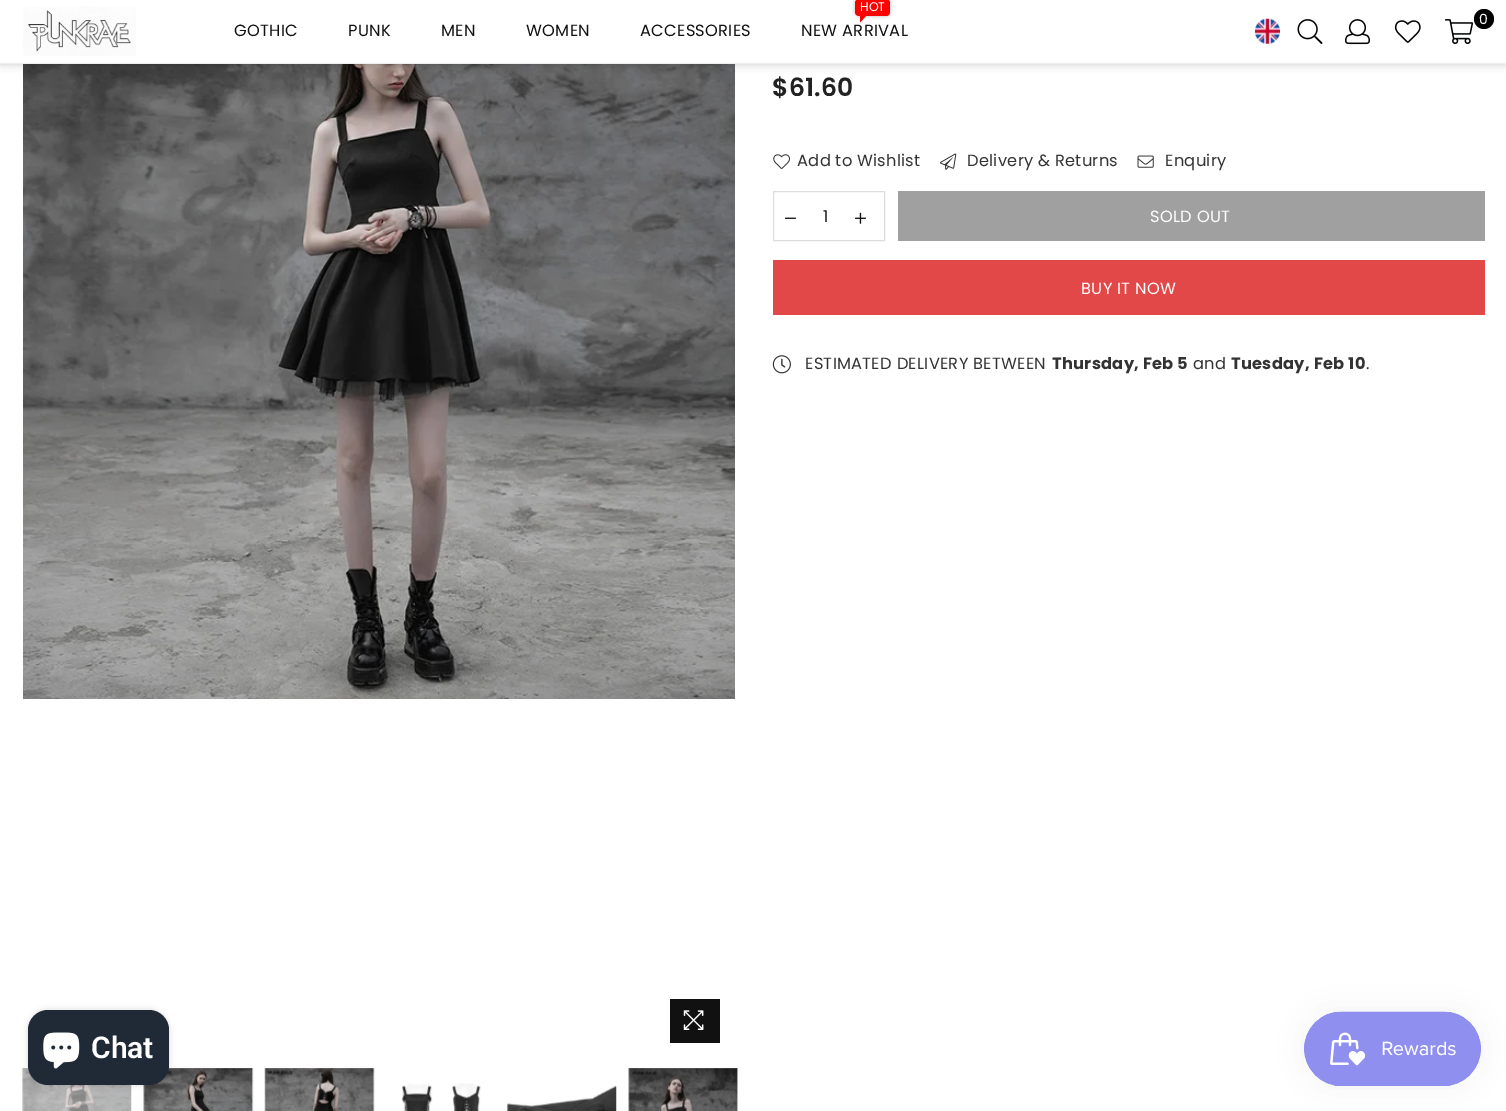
%!PS-Adobe-3.0
%%BoundingBox: 0 0 1506 1111
%%LanguageLevel: 3
%%Pages: 1
%%EndComments
%%BeginProlog
/setink { dup -16 bitshift 255 div exch dup -8 bitshift 255 and 255 div exch 255 and 255 div setrgbcolor } def
/usefont { [ exch dup neg 0 0 3 -1 roll 0 0 ] selectfont } def
/setalpha { dup .setfillconstantalpha .setstrokeconstantalpha } def
/disc { newpath 0 360 arc closepath } def
/rrect { 5 dict begin { /r /h /w /y /x } { exch def } forall
  x r add y moveto x w add y 2 copy h add r arct x w add y h add x 1 index r arct
  x y h add x y r arct x y 2 copy exch w add exch r arct closepath end } def
/softshadow { 12 dict begin { /a /b /q /h /w /y /x } { exch def } forall gsave /was 0 def
  9 -2 -9 { dup b mul 4 div /e exch def 1 sub .425 mul 2.718 exch exp 1 add a .99 .min exch div /now exch def
    1 1 now sub 1 was sub div sub setalpha /was now def
    w h .min e 2 mul add 0 gt { x e sub y e sub w e 2 mul add h e 2 mul add
      q e add b .6 mul add w h .min 2 div e add .min 0 .max rrect fill } if } for grestore end } def
/drawimage { 5 dict begin { /h /w /y /x /name } { exch def } forall
  gsave x y translate w h scale
  w h 8 [w 0 0 h 0 0] name (r) file false 3 colorimage grestore end } def
%%EndProlog
%%BeginSetup
<< /PageSize [1506 1111] /PageUsesTransparency true >> setpagedevice
%%EndSetup
%%Page: 1 1
0 .pushpdf14devicefilter
0 1111 translate 1 -1 scale
4 setmiterlimit
16#FFFFFF setink
0 0 1506 1111 rectfill
(img7.raw) 23 64 712 635 drawimage
16#000000 setink
0 0 1506 64 0 4.5 0.2 softshadow
16#FFFFFF setink
0 0 1506 63 rectfill
16#EEEEEE setink
0 63 1506 1 rectfill
(img1.raw) 23 6 113 50 drawimage
/Poppins-Regular 16.25 usefont
16#111111 setink
234 36 moveto 0.3 0 (GOTHIC) ashow
348 36 moveto 0.3 0 (PUNK) ashow
441 36 moveto 0.3 0 (MEN) ashow
526 36 moveto 0.3 0 (WOMEN) ashow
640 36 moveto 0.3 0 (ACCESSORIES) ashow
16#000000 setink
855 -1 35 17 4 2 0.3 softshadow
16#FF0000 setink
855 -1 35 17 4 rrect fill
/Poppins-Regular 12.5 usefont
16#FFFFFF setink
860 11 moveto (HOT) show
16#FF0000 setink
860 22.5 moveto 860 10 lineto 866 16 lineto closepath fill
/Poppins-Regular 16.25 usefont
16#111111 setink
801 36 moveto 0.3 0 (NEW ARRIVAL) ashow
(img2.raw) 1255 18 25 26 drawimage
(img3.raw) 1297 19 26 25 drawimage
(img4.raw) 1345 19 25 26 drawimage
(img5.raw) 1394 20 27 23 drawimage
(img6.raw) 1445 19 29 25 drawimage
16#000000 setink
1484 19 10 disc fill
/Poppins-Regular 14 usefont
16#FFFFFF setink
1479 24 moveto 0.3 0 (0) ashow
16#111111 setink
670 999 50 44 rectfill
(img8.raw) 683 1010 21 20 drawimage
(img9.raw) 22 1068 110 43 drawimage
(img10.raw) 143 1068 111 43 drawimage
(img11.raw) 264 1068 111 43 drawimage
(img12.raw) 401 1083 80 28 drawimage
(img13.raw) 507 1085 110 26 drawimage
(img14.raw) 628 1068 110 43 drawimage
/Poppins-SemiBold 25 usefont
16#222222 setink
772 96 moveto 0.3 0 ($61.60) ashow
(img15.raw) 773 154 17 15 drawimage
/Poppins-Regular 16.25 usefont
16#333333 setink
797 166 moveto 0.3 0 (Add to Wishlist) ashow
(img16.raw) 940 153 17 17 drawimage
967 166 moveto 0.3 0 (Delivery & Returns) ashow
(img17.raw) 1137 155 17 13 drawimage
1165 166 moveto 0.3 0 (Enquiry) ashow
16#DDDDDD setink
773.5 191.5 111 49 rectstroke
(img18.raw) 785 217 11 2 drawimage
16#111111 setink
823 222 moveto (1) show
(img19.raw) 855 212 11 12 drawimage
16#A0A0A0 setink
898 191 587 50 rectfill
16#FFFFFF setink
1150 222 moveto 0.3 0 (SOLD OUT) ashow
16#E34848 setink
773 260 712 55 rectfill
16#FFFFFF setink
1081 294 moveto 0.3 0 (BUY IT NOW) ashow
(img20.raw) 772 355 19 19 drawimage
16#333333 setink
805 369 moveto 0.3 0 (ESTIMATED DELIVERY BETWEEN) ashow
/Poppins-Bold 16.25 usefont
1052 369 moveto 0.3 0 (Thursday, Feb 5) ashow
/Poppins-Regular 16.25 usefont
1193 369 moveto 0.3 0 (and) ashow
/Poppins-Bold 16.25 usefont
1231 369 moveto 0.3 0 (Tuesday, Feb 10) ashow
/Poppins-Regular 16.25 usefont
1366 369 moveto 0.3 0 (.) ashow
16#000000 setink
28 1010 141 75 20 3 0.15 softshadow
16#202A36 setink
28 1010 141 75 20 rrect fill
(img21.raw) 43 1032 37 37 drawimage
/Roboto-SemiBold 30 usefont
16#FFFFFF setink
91 1058 moveto (Chat) show
16#000000 setink
1304 1011 177 75 37.5 15.5 0.05 softshadow
(img22.raw) 1304 1011 177 75 drawimage
.poppdf14devicefilter showpage
%%EOF
